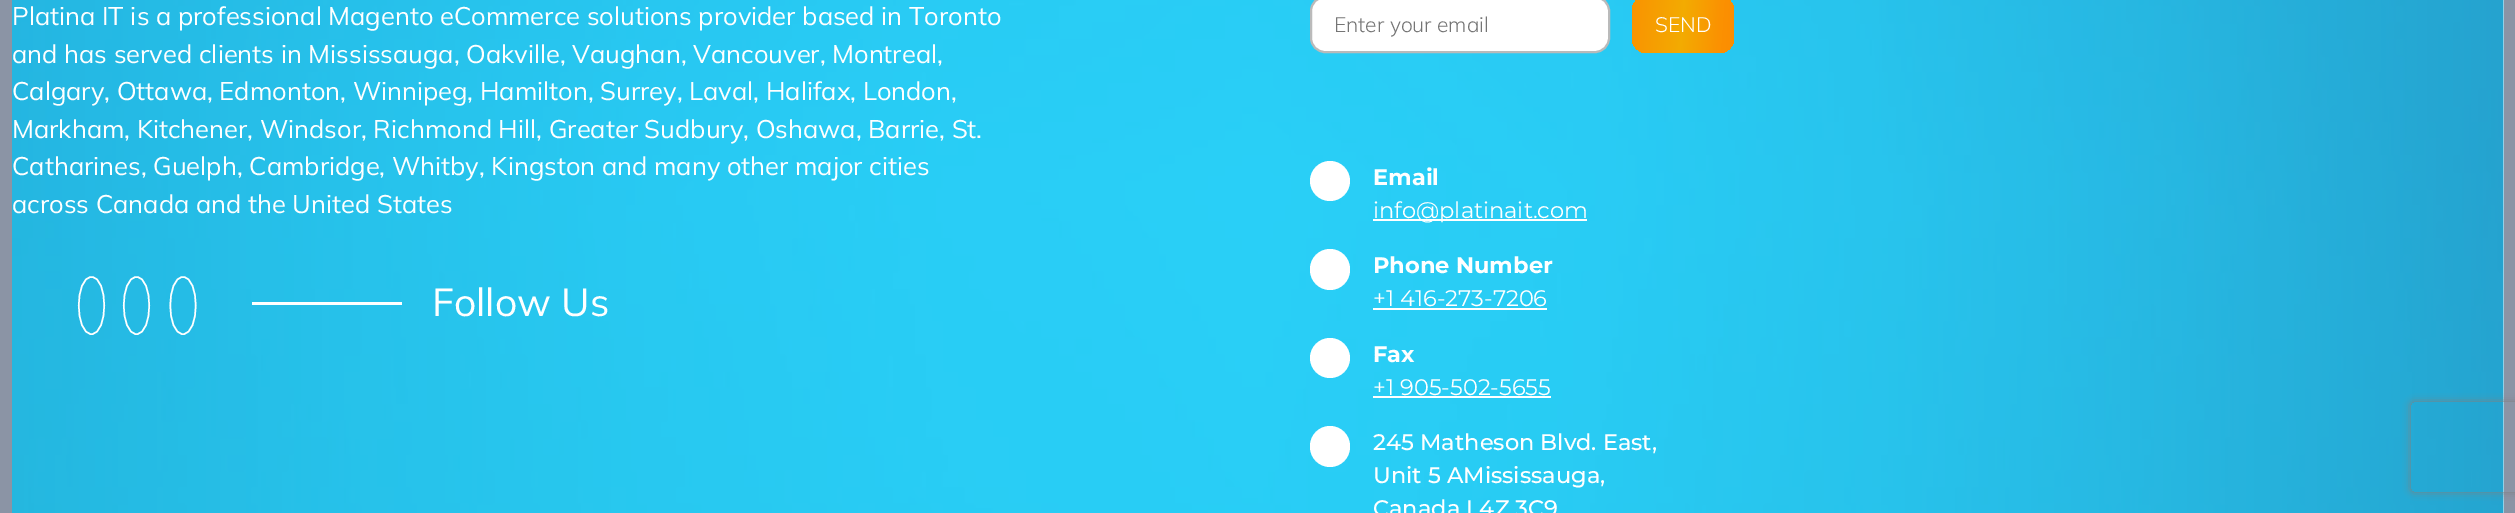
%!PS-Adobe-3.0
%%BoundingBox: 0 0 2515 513
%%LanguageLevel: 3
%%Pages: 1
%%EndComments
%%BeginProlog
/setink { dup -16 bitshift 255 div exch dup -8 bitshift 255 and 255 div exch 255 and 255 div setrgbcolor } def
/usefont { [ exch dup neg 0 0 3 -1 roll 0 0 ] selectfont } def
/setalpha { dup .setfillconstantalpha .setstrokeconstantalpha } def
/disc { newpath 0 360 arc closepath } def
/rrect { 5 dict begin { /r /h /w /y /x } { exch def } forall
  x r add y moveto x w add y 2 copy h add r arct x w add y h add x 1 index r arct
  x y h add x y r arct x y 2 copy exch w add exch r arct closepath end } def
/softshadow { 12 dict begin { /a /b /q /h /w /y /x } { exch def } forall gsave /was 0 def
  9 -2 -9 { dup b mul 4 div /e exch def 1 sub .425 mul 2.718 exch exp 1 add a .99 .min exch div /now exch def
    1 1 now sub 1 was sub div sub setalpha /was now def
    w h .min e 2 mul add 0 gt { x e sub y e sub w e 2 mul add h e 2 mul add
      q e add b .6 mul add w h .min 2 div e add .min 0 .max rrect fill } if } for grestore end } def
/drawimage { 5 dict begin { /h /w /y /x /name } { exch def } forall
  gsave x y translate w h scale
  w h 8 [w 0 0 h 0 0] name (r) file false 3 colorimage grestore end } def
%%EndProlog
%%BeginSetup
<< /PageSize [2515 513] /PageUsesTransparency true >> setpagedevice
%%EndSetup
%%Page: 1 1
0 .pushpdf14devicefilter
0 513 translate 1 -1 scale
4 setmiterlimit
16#8B94A5 setink
0 0 2515 513 rectfill
16#FFFFFF setink
2503 0 1 513 rectfill
(img1.raw) 12 0 2492 513 drawimage
/Mulish-Regular 25.5 usefont
[
    [(Platina IT is a professional Magento eCommerce solutions provider based in Toronto) 12 25]
    [(and has served clients in Mississauga, Oakville, Vaughan, Vancouver, Montreal,) 12 63]
    [(Calgary, Ottawa, Edmonton, Winnipeg, Hamilton, Surrey, Laval, Halifax, London,) 12 100]
    [(Markham, Kitchener, Windsor, Richmond Hill, Greater Sudbury, Oshawa, Barrie, St.) 12 138]
    [(Catharines, Guelph, Cambridge, Whitby, Kingston and many other major cities) 12 175]
    [(across Canada and the United States) 12 213]
] { aload pop moveto show } forall
1.5 setlinewidth
91.5 277 moveto 108.5 277 108.5 334 91.5 334 curveto 74.5 334 74.5 277 91.5 277 curveto closepath stroke
136.5 277 moveto 153.5 277 153.5 334 136.5 334 curveto 119.5 334 119.5 277 136.5 277 curveto closepath stroke
183 277 moveto 200 277 200 334 183 334 curveto 166 334 166 277 183 277 curveto closepath stroke
252 302 150 3 rectfill
/Mulish-Regular 39 usefont
432 316 moveto (Follow Us) show
1311 -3 298 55 14 rrect gsave fill grestore
16#BABABA setink
2 setlinewidth
stroke
/Mulish-Light 21 usefont
16#757575 setink
1334 32 moveto (Enter your email) show
gsave 1632 -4 102 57 15 rrect clip newpath
<< /ShadingType 2 /ColorSpace /DeviceRGB /Coords [1630 20 1736 28] /Extend [true true] /Function << /FunctionType 3 /Domain [0 1] /Functions [<< /FunctionType 2 /Domain [0 1] /C0 [0.98 0.576 0.004] /C1 [0.953 0.671 0.004] /N 1 >> << /FunctionType 2 /Domain [0 1] /C0 [0.953 0.671 0.004] /C1 [0.984 0.569 0.004] /N 1 >> << /FunctionType 2 /Domain [0 1] /C0 [0.984 0.569 0.004] /C1 [0.988 0.553 0.004] /N 1 >>] /Bounds [0.5 0.85] /Encode [0 1 0 1 0 1] >> >> shfill grestore
16#FFFFFF setink
1655 32 moveto (SEND) show
1330 181 20 disc fill
/Montserrat-Bold 22.5 usefont
1373 185 moveto (Email) show
1373 219 214 2 rectfill
/Montserrat-Regular 22.5 usefont
1373 218 moveto (info@platinait.com) show
1310 249 40 41 20 rrect fill
/Montserrat-Bold 22.5 usefont
1373 273 moveto (Phone Number) show
/Montserrat-Regular 22.5 usefont
1373 306 moveto (+1 416-273-7206) show
1373 308 174 2 rectfill
1330 358 20 disc fill
/Montserrat-Bold 22.5 usefont
1373 362 moveto (Fax) show
/Montserrat-Regular 22.5 usefont
1373 395 moveto (+1 905-502-5655) show
1373 396 178 2 rectfill
1310 426 40 41 20 rrect fill
/Montserrat-Medium 22.5 usefont
[
    [(245 Matheson Blvd. East,) 1373 450]
    [(Unit 5 AMississauga,) 1373 483]
    [(Canada L4Z 3C9) 1373 516]
] { aload pop moveto show } forall
gsave
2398 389 moveto 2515 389 lineto 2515 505 lineto 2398 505 lineto closepath 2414 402 moveto 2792 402 lineto 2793.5 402 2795 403.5 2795 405 curveto 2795 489 lineto 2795 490.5 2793.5 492 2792 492 curveto 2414 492 lineto 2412.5 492 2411 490.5 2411 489 curveto 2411 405 lineto 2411 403.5 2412.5 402 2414 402 curveto closepath eoclip newpath
16#808080 setink
2411 402 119 90 3 4 1 softshadow
grestore
.poppdf14devicefilter showpage
%%EOF
